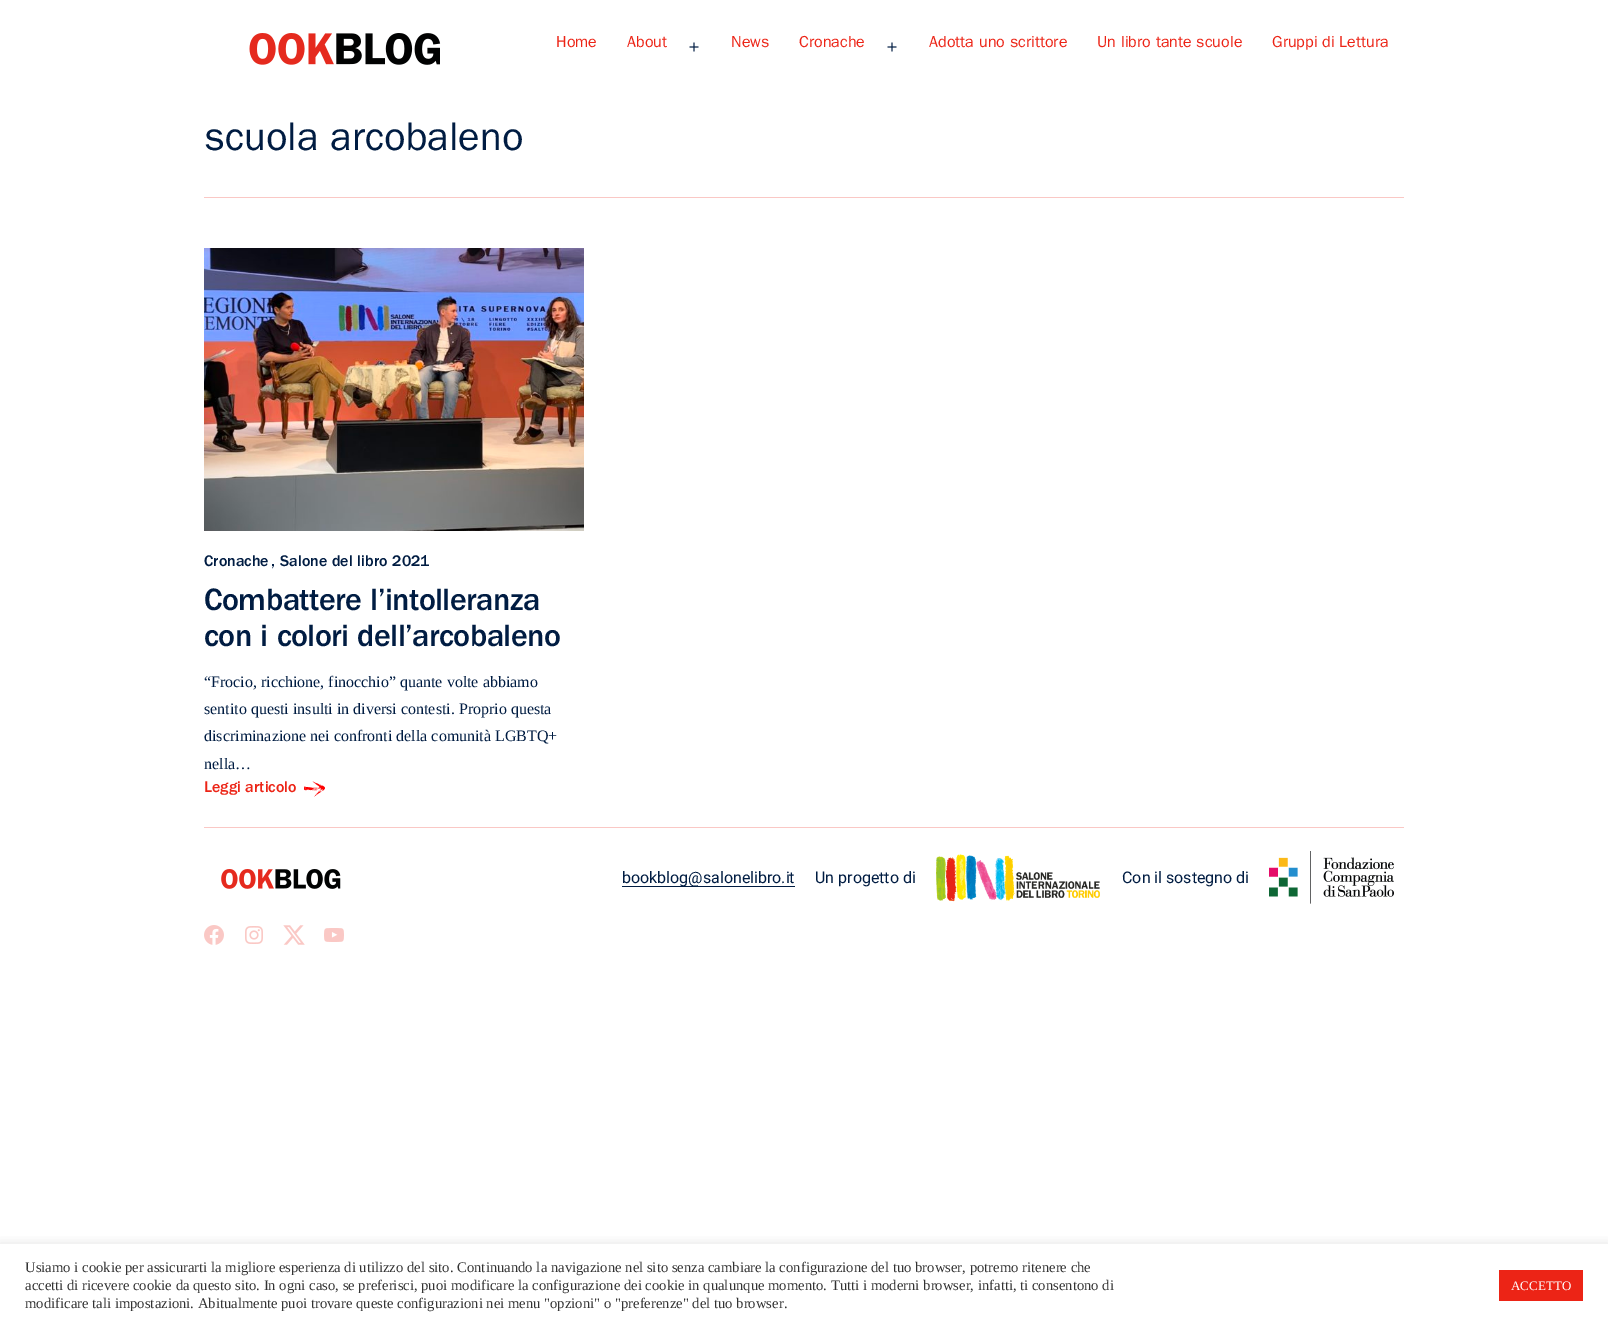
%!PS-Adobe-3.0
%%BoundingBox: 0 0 1608 1326
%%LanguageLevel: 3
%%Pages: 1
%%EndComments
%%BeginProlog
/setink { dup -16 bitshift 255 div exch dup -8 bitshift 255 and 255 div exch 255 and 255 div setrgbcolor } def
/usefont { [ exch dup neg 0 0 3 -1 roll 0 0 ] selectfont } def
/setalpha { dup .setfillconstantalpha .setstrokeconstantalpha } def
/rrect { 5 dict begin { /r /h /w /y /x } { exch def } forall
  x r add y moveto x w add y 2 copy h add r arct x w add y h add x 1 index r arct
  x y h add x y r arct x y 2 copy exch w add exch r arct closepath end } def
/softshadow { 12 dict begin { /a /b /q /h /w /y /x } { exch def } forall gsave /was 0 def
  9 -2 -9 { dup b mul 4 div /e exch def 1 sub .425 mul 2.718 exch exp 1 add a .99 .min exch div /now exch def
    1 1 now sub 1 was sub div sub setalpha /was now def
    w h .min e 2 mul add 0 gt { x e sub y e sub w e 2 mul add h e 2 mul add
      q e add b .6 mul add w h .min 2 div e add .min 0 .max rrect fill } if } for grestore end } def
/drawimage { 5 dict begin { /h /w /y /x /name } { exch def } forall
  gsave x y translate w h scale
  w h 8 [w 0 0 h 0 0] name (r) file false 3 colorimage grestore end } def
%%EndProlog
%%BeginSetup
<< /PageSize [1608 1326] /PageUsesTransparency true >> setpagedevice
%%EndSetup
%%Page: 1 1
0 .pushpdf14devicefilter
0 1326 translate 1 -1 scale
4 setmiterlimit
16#FFFFFF setink
0 0 1608 1326 rectfill
(img1.raw) 249 33 192 32 drawimage
/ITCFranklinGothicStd-Regular 16 usefont
16#EC2416 setink
556 47 moveto (Home) show
627 47 moveto (About) show
(img2.raw) 689 42 10 10 drawimage
731 47 moveto (News) show
799 47 moveto (Cronache) show
(img2.raw) 887 42 10 10 drawimage
[
    [(Adotta uno scrittore) 929 47]
    [(Un libro tante scuole) 1097 47]
    [(Gruppi di Lettura) 1272 47]
] { aload pop moveto show } forall
16#FAC8C5 setink
204 197 1200 1 rectfill
/ITCFranklinGothicStd-Regular 40 usefont
16#001C42 setink
204 150 moveto (scuola arcobaleno) show
(img3.raw) 204 248 380 283 drawimage
/ITCFranklinGothicStd-Medium 16 usefont
[
    [(Cronache) 204 566]
    [(,) 271 566]
    [(Salone del libro 2021) 280 566]
] { aload pop moveto show } forall
/ITCFranklinGothicStd-Medium 32 usefont
204 610 moveto -0.5 0 (Combattere l’intolleranza) ashow
204 646 moveto -0.5 0 (con i colori dell’arcobaleno) ashow
/LiberationSerif-Regular 16 usefont
[
    [(“Frocio, ricchione, finocchio” quante volte abbiamo) 204 687]
    [(sentito questi insulti in diversi contesti. Proprio questa) 204 714]
    [(discriminazione nei confronti della comunità LGBTQ+) 204 741]
    [(nella…) 204 769]
] { aload pop moveto show } forall
/ITCFranklinGothicStd-Medium 16 usefont
16#EC2416 setink
204 792 moveto (Leggi articolo) show
(img4.raw) 304 781 21 16 drawimage
16#FAC8C5 setink
204 827 1200 1 rectfill
(img5.raw) 221 869 120 20 drawimage
16#001C42 setink
622 886 173 1 rectfill
/Roboto-Regular 16 usefont
622 883 moveto (bookblog@salonelibro.it) show
815 883 moveto (Un progetto di) show
(img6.raw) 936 854 164 48 drawimage
1122 883 moveto (Con il sostegno di) show
(img7.raw) 1269 851 125 53 drawimage
(img8.raw) 204 925 20 20 drawimage
(img9.raw) 245 926 18 18 drawimage
(img10.raw) 283 925 22 20 drawimage
(img11.raw) 324 928 20 14 drawimage
gsave
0 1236 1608 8 rectclip
16#ACABAB setink
0 1243 1608 82 0 5 0.3 softshadow
grestore
/LiberationSerif-Regular 14.67 usefont
16#333333 setink
[
    [(Usiamo i cookie per assicurarti la migliore esperienza di utilizzo del sito. Continuando la navigazione nel sito senza cambiare la configurazione del tuo browser, potremo ritenere che) 25 1272]
    [(accetti di ricevere cookie da questo sito. In ogni caso, se preferisci, puoi modificare la configurazione dei cookie in qualunque momento. Tutti i moderni browser, infatti, ti consentono di) 25 1290]
    [(modificare tali impostazioni. Abitualmente puoi trovare queste configurazioni nei menu "opzioni" o "preferenze" del tuo browser.) 25 1308]
] { aload pop moveto show } forall
16#EC2416 setink
1499 1270 84 31 rectfill
/LiberationSerif-Regular 13 usefont
16#FFFFFF setink
1511 1290 moveto (ACCETTO) show
.poppdf14devicefilter showpage
%%EOF
